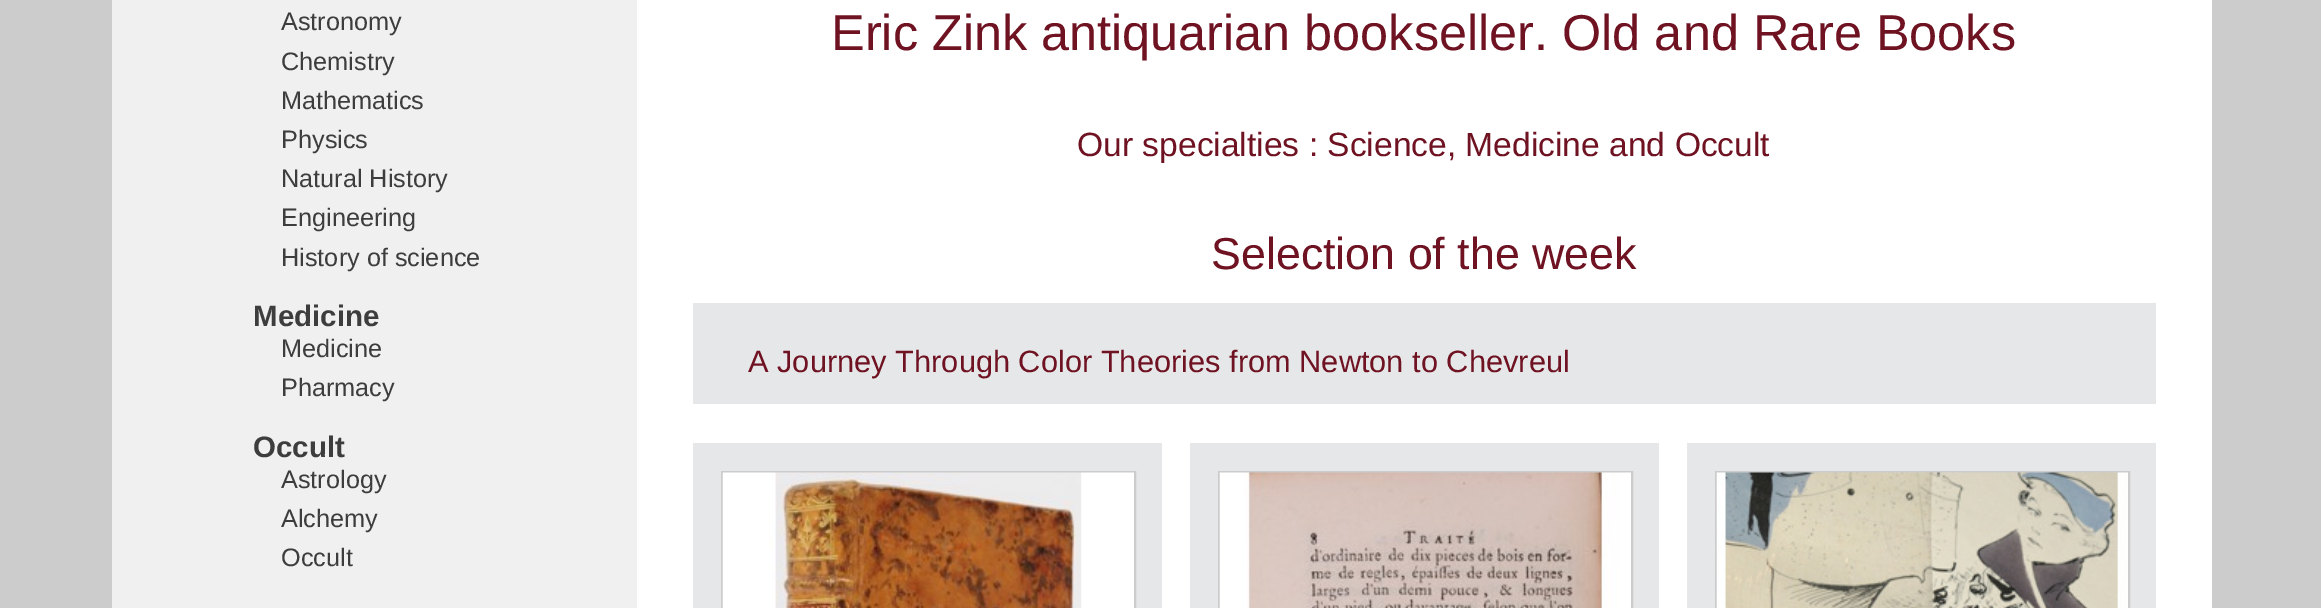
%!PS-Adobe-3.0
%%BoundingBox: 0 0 2321 608
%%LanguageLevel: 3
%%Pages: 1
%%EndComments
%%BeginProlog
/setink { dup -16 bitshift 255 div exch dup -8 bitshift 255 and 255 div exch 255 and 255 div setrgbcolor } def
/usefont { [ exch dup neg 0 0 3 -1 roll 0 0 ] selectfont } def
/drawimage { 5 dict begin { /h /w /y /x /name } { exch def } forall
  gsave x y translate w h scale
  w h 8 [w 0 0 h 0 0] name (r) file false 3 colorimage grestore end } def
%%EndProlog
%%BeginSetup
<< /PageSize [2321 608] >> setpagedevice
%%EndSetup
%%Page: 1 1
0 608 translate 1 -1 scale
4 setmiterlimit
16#CCCCCC setink
0 0 2321 608 rectfill
16#FFFFFF setink
637 0 1575 608 rectfill
16#F0F0F0 setink
112 0 525 608 rectfill
/LiberationSans-Regular 25.25 usefont
16#3D3D3D setink
[
    [(Astronomy) 281 30]
    [(Chemistry) 281 70]
    [(Mathematics) 281 109]
    [(Physics) 281 148]
    [(Natural History) 281 187]
    [(Engineering) 281 226]
    [(History of science) 281 266]
] { aload pop moveto show } forall
/LiberationSans-Bold 29.5 usefont
253 326 moveto (Medicine) show
/LiberationSans-Regular 25.25 usefont
281 357 moveto (Medicine) show
281 396 moveto (Pharmacy) show
/LiberationSans-Bold 29.5 usefont
253 457 moveto (Occult) show
/LiberationSans-Regular 25.25 usefont
[
    [(Astrology) 281 488]
    [(Alchemy) 281 527]
    [(Occult) 281 566]
] { aload pop moveto show } forall
/LiberationSans-Regular 50.4 usefont
16#6F1222 setink
831 50 moveto (Eric Zink antiquarian bookseller. Old and Rare Books) show
/LiberationSans-Regular 33.6 usefont
1077 156 moveto (Our specialties : Science, Medicine and Occult) show
/LiberationSans-Regular 44.75 usefont
1211 269 moveto (Selection of the week) show
16#E6E7E8 setink
693 303 1463 101 rectfill
/LiberationSans-Regular 30.8 usefont
16#6F1222 setink
748 372 moveto (A Journey Through Color Theories from Newton to Chevreul) show
16#E6E7E8 setink
693 443 469 165 rectfill
16#CCCCCC setink
2 setlinewidth
722 472 413 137 rectstroke
(img1.raw) 722 472 412 136 drawimage
16#E6E7E8 setink
1190 443 469 165 rectfill
16#CCCCCC setink
1219 472 413 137 rectstroke
(img2.raw) 1219 472 412 136 drawimage
16#E6E7E8 setink
1687 443 469 165 rectfill
16#CCCCCC setink
1716 472 413 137 rectstroke
(img3.raw) 1716 472 412 136 drawimage
showpage
%%EOF
